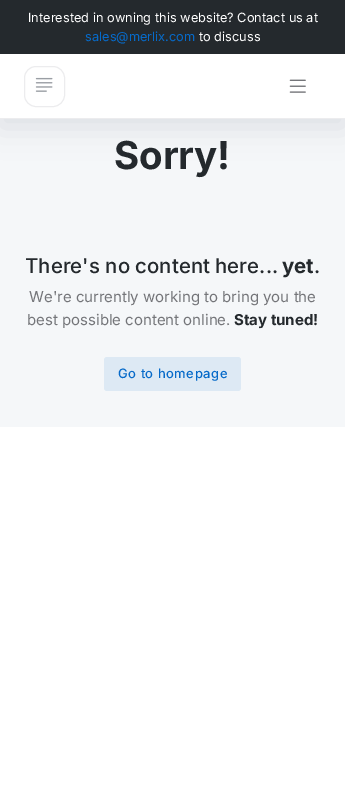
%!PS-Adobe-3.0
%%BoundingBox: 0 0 345 785
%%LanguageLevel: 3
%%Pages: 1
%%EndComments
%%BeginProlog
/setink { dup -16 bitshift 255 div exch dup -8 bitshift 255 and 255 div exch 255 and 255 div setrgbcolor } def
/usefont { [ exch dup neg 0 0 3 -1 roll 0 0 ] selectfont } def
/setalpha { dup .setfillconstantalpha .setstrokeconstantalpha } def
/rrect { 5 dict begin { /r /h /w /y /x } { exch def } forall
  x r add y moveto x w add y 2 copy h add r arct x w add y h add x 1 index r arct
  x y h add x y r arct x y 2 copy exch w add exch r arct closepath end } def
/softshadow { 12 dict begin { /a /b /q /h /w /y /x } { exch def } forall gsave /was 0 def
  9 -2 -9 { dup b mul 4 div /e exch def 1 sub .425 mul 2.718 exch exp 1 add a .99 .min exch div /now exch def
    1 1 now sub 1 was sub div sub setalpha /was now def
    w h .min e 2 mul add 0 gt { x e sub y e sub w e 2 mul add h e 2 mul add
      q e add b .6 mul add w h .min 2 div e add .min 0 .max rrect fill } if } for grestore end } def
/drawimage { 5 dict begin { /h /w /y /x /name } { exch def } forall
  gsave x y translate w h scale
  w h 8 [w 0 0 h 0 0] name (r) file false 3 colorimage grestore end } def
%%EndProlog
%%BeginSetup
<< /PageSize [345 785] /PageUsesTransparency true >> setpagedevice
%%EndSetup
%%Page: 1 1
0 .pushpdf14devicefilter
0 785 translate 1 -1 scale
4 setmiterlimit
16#FFFFFF setink
0 0 345 785 rectfill
16#F5F7F9 setink
0 119 345 308 rectfill
16#020617 setink
0 8 345 119 0 15 0.1 softshadow
[
    [0 54 345 64 16#FFFFFF]
    [0 118 345 1 16#ECECEE]
    [0 0 345 54 16#24292D]
] { aload pop setink rectfill } forall
/Inter-Regular 12.8 usefont
16#FFFFFF setink
28 22 moveto (Interested in owning this website? Contact us at) show
16#066AC9 setink
85 41 moveto (sales@merlix.com) show
16#FFFFFF setink
199 41 moveto (to discuss) show
16#ECECEE setink
24.5 66.5 40 40 11.5 rrect stroke
(img1.raw) 35 77 18 15 drawimage
(img2.raw) 289 79 17 14 drawimage
/Inter-Bold 38.5 usefont
16#24292D setink
114 169 moveto (Sorry!) show
/Inter-Medium 20.4 usefont
25 273 moveto (There's no content here...) show
/Inter-Bold 20.4 usefont
282 273 moveto (yet) show
/Inter-Medium 20.4 usefont
314 273 moveto (.) show
/Inter-Regular 15 usefont
16#747579 setink
29 302 moveto (We're currently working to bring you the) show
27 325 moveto (best possible content online.) show
/Inter-Bold 15 usefont
16#24292D setink
234 325 moveto (Stay tuned!) show
16#DDE9F4 setink
104 357 137 34 3 rrect fill
/Inter-Medium 13 usefont
16#066AC9 setink
118 378 moveto 0.5 0 (Go to homepage) ashow
.poppdf14devicefilter showpage
%%EOF
